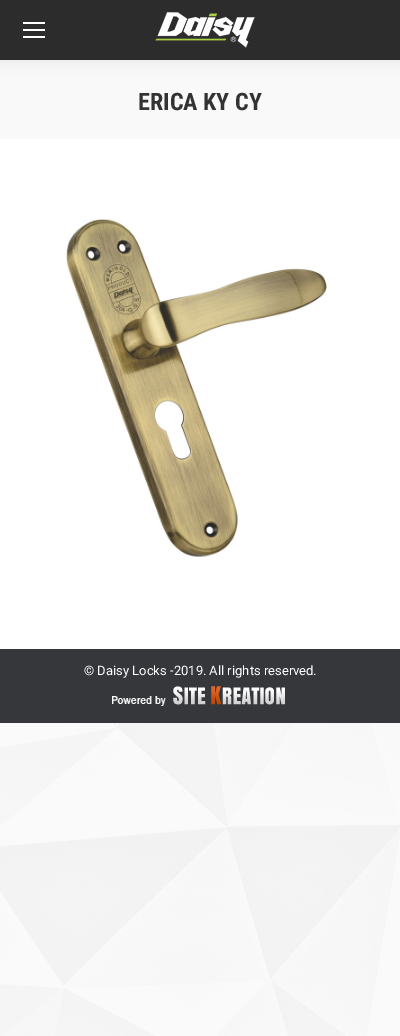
%!PS-Adobe-3.0
%%BoundingBox: 0 0 400 1036
%%LanguageLevel: 3
%%Pages: 1
%%EndComments
%%BeginProlog
/setink { dup -16 bitshift 255 div exch dup -8 bitshift 255 and 255 div exch 255 and 255 div setrgbcolor } def
/usefont { [ exch dup neg 0 0 3 -1 roll 0 0 ] selectfont } def
/setalpha { dup .setfillconstantalpha .setstrokeconstantalpha } def
/rrect { 5 dict begin { /r /h /w /y /x } { exch def } forall
  x r add y moveto x w add y 2 copy h add r arct x w add y h add x 1 index r arct
  x y h add x y r arct x y 2 copy exch w add exch r arct closepath end } def
/softshadow { 12 dict begin { /a /b /q /h /w /y /x } { exch def } forall gsave /was 0 def
  9 -2 -9 { dup b mul 4 div /e exch def 1 sub .425 mul 2.718 exch exp 1 add a .99 .min exch div /now exch def
    1 1 now sub 1 was sub div sub setalpha /was now def
    w h .min e 2 mul add 0 gt { x e sub y e sub w e 2 mul add h e 2 mul add
      q e add b .6 mul add w h .min 2 div e add .min 0 .max rrect fill } if } for grestore end } def
/drawimage { 5 dict begin { /h /w /y /x /name } { exch def } forall
  gsave x y translate w h scale
  w h 8 [w 0 0 h 0 0] name (r) file false 3 colorimage grestore end } def
%%EndProlog
%%BeginSetup
<< /PageSize [400 1036] /PageUsesTransparency true >> setpagedevice
%%EndSetup
%%Page: 1 1
0 .pushpdf14devicefilter
0 1036 translate 1 -1 scale
4 setmiterlimit
16#F9F9F9 setink
0 0 400 1036 rectfill
(img1.raw) 0 723 400 313 drawimage
16#FFFFFF setink
0 139 400 510 rectfill
16#000000 setink
-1 -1 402 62 0 7.5 0.07 softshadow
[
    [0 0 400 60 16#2C2C2C]
    [23 22 22 2 16#FFFFFF]
    [23 29 22 2 16#FFFFFF]
    [23 36 22 2 16#FFFFFF]
] { aload pop setink rectfill } forall
(img2.raw) 155 12 100 36 drawimage
/RobotoCondensed-Bold 24 usefont
16#333333 setink
138 110 moveto (ERICA KY CY) show
(img3.raw) 66 219 262 339 drawimage
16#35373B setink
0 649 400 74 rectfill
/Roboto-Regular 13 usefont
16#FFFFFF setink
84 675 moveto (© Daisy Locks -2019. All rights reserved.) show
(img4.raw) 112 686 173 20 drawimage
.poppdf14devicefilter showpage
%%EOF
